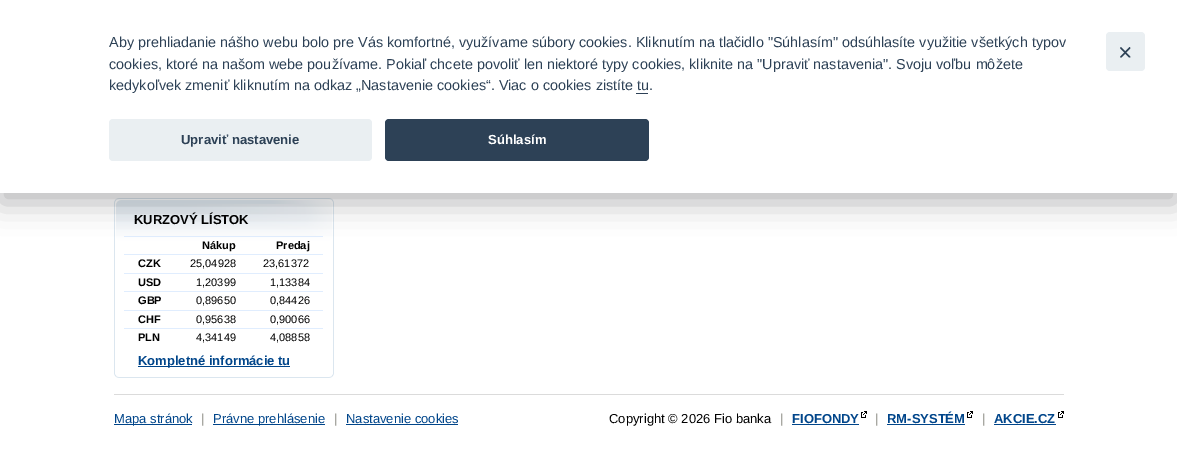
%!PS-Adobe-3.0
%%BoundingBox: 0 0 1177 473
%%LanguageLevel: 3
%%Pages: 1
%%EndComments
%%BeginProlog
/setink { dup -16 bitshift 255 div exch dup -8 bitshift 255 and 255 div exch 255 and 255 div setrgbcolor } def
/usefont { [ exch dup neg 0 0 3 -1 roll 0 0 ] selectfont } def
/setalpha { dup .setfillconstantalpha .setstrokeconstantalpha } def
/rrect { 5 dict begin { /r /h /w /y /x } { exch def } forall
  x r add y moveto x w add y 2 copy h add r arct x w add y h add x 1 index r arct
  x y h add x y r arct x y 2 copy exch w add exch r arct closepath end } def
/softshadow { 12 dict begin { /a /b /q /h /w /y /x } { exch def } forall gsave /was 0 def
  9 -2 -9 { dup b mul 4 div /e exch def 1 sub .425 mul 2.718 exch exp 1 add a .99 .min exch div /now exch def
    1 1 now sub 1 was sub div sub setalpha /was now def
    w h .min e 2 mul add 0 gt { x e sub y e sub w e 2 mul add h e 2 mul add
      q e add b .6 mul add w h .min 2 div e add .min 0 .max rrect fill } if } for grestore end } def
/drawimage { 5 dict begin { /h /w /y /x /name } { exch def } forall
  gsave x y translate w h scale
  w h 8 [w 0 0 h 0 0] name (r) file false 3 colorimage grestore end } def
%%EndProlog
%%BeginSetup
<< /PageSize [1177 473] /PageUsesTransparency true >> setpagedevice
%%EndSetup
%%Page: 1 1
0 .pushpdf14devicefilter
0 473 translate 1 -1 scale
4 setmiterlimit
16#FFFFFF setink
0 0 1177 473 rectfill
(img1.raw) 114 198 220 176 drawimage
16#E0EDFE setink
124 236 199 1 rectfill
16#020203 setink
0 10 1177 193 0 15 0.28 softshadow
16#FFFFFF setink
0 0 1177 193 rectfill
/LiberationSans-Regular 14.4 usefont
16#2D4156 setink
[
    [(Aby prehliadanie nášho webu bolo pre Vás komfortné, využívame súbory cookies. Kliknutím na tlačidlo "Súhlasím" odsúhlasíte využitie všetkých typov) 109 47]
    [(cookies, ktoré na našom webe používame. Pokiaľ chcete povoliť len niektoré typy cookies, kliknite na "Upraviť nastavenia". Svoju voľbu môžete) 109 69]
    [(kedykoľvek zmeniť kliknutím na odkaz „Nastavenie cookies“. Viac o cookies zistíte tu.) 109 90]
] { aload pop moveto show } forall
636 93 12 1 rectfill
16#EAEFF2 setink
109 119 263 42 4 rrect fill
/LiberationSans-Bold 13.1 usefont
16#2D4156 setink
181 144 moveto (Upraviť nastavenie) show
385 119 264 42 4 rrect fill
16#FFFFFF setink
488 144 moveto (Súhlasím) show
16#EAEFF2 setink
1106 32 39 39 4 rrect fill
16#2D4156 setink
1130 47.5 moveto 1130.5 48 1130.5 48.5 1130 48.5 curveto 1121.5 57.5 lineto 1121 57.5 1120.5 57.5 1120.5 57.5 curveto 1120 57 1120 56.5 1120.5 56.5 curveto 1129 47.5 lineto 1129.5 47 1130 47 1130 47.5 curveto closepath fill
1120.5 47.5 moveto 1120.5 47 1121 47 1121.5 47.5 curveto 1130 56.5 lineto 1130.5 56.5 1130.5 57 1130 57.5 curveto 1130 57.5 1129.5 57.5 1129 57.5 curveto 1120.5 48.5 lineto 1120 48.5 1120 48 1120.5 47.5 curveto closepath fill
(img2.raw) 114 374 220 4 drawimage
/LiberationSans-Bold 13 usefont
16#000000 setink
134 224 moveto (KURZOVÝ LÍSTOK) show
/LiberationSans-Bold 11 usefont
[
    [(Nákup) 202 249]
    [(Predaj) 276 249]
    [(CZK) 138 267]
] { aload pop moveto show } forall
/LiberationSans-Regular 11 usefont
190 267 moveto (25,04928) show
16#E0EDFE setink
124 254 199 1 rectfill
16#000000 setink
263 267 moveto (23,61372) show
/LiberationSans-Bold 11 usefont
138 286 moveto (USD) show
/LiberationSans-Regular 11 usefont
196 286 moveto (1,20399) show
16#E0EDFE setink
124 273 199 1 rectfill
16#000000 setink
270 286 moveto (1,13384) show
/LiberationSans-Bold 11 usefont
138 304 moveto (GBP) show
/LiberationSans-Regular 11 usefont
196 304 moveto (0,89650) show
16#E0EDFE setink
124 291 199 1 rectfill
16#000000 setink
270 304 moveto (0,84426) show
/LiberationSans-Bold 11 usefont
138 323 moveto (CHF) show
/LiberationSans-Regular 11 usefont
196 323 moveto (0,95638) show
16#E0EDFE setink
124 310 199 1 rectfill
16#000000 setink
270 323 moveto (0,90066) show
/LiberationSans-Bold 11 usefont
138 341 moveto (PLN) show
/LiberationSans-Regular 11 usefont
196 341 moveto (4,34149) show
16#E0EDFE setink
124 328 199 1 rectfill
16#000000 setink
270 341 moveto (4,08858) show
16#00458A setink
138 366 152 1 rectfill
/LiberationSans-Bold 13 usefont
138 365 moveto (Kompletné informácie tu) show
16#DBDBDB setink
114 394 950 1 rectfill
16#00458A setink
114 424 78 1 rectfill
/LiberationSans-Regular 13 usefont
114 423 moveto (Mapa stránok) show
16#888880 setink
201 423 moveto (|) show
16#00458A setink
213 424 112 1 rectfill
213 423 moveto (Právne prehlásenie) show
16#888880 setink
334 423 moveto (|) show
16#00458A setink
346 423 moveto (Nastavenie cookies) show
346 424 112 1 rectfill
16#000000 setink
609 423 moveto (Copyright © 2026 Fio banka) show
16#888880 setink
780 423 moveto (|) show
/LiberationSans-Bold 13 usefont
16#00458A setink
792 423 moveto (FIOFONDY) show
792 424 67 1 rectfill
(img3.raw) 861 411 6 7 drawimage
/LiberationSans-Regular 13 usefont
16#888880 setink
875 423 moveto (|) show
/LiberationSans-Bold 13 usefont
16#00458A setink
887 423 moveto (RM-SYSTÉM) show
887 424 78 1 rectfill
(img3.raw) 967 411 6 7 drawimage
/LiberationSans-Regular 13 usefont
16#888880 setink
982 423 moveto (|) show
/LiberationSans-Bold 13 usefont
16#00458A setink
994 423 moveto (AKCIE.CZ) show
994 424 62 1 rectfill
(img3.raw) 1058 411 6 7 drawimage
.poppdf14devicefilter showpage
%%EOF
